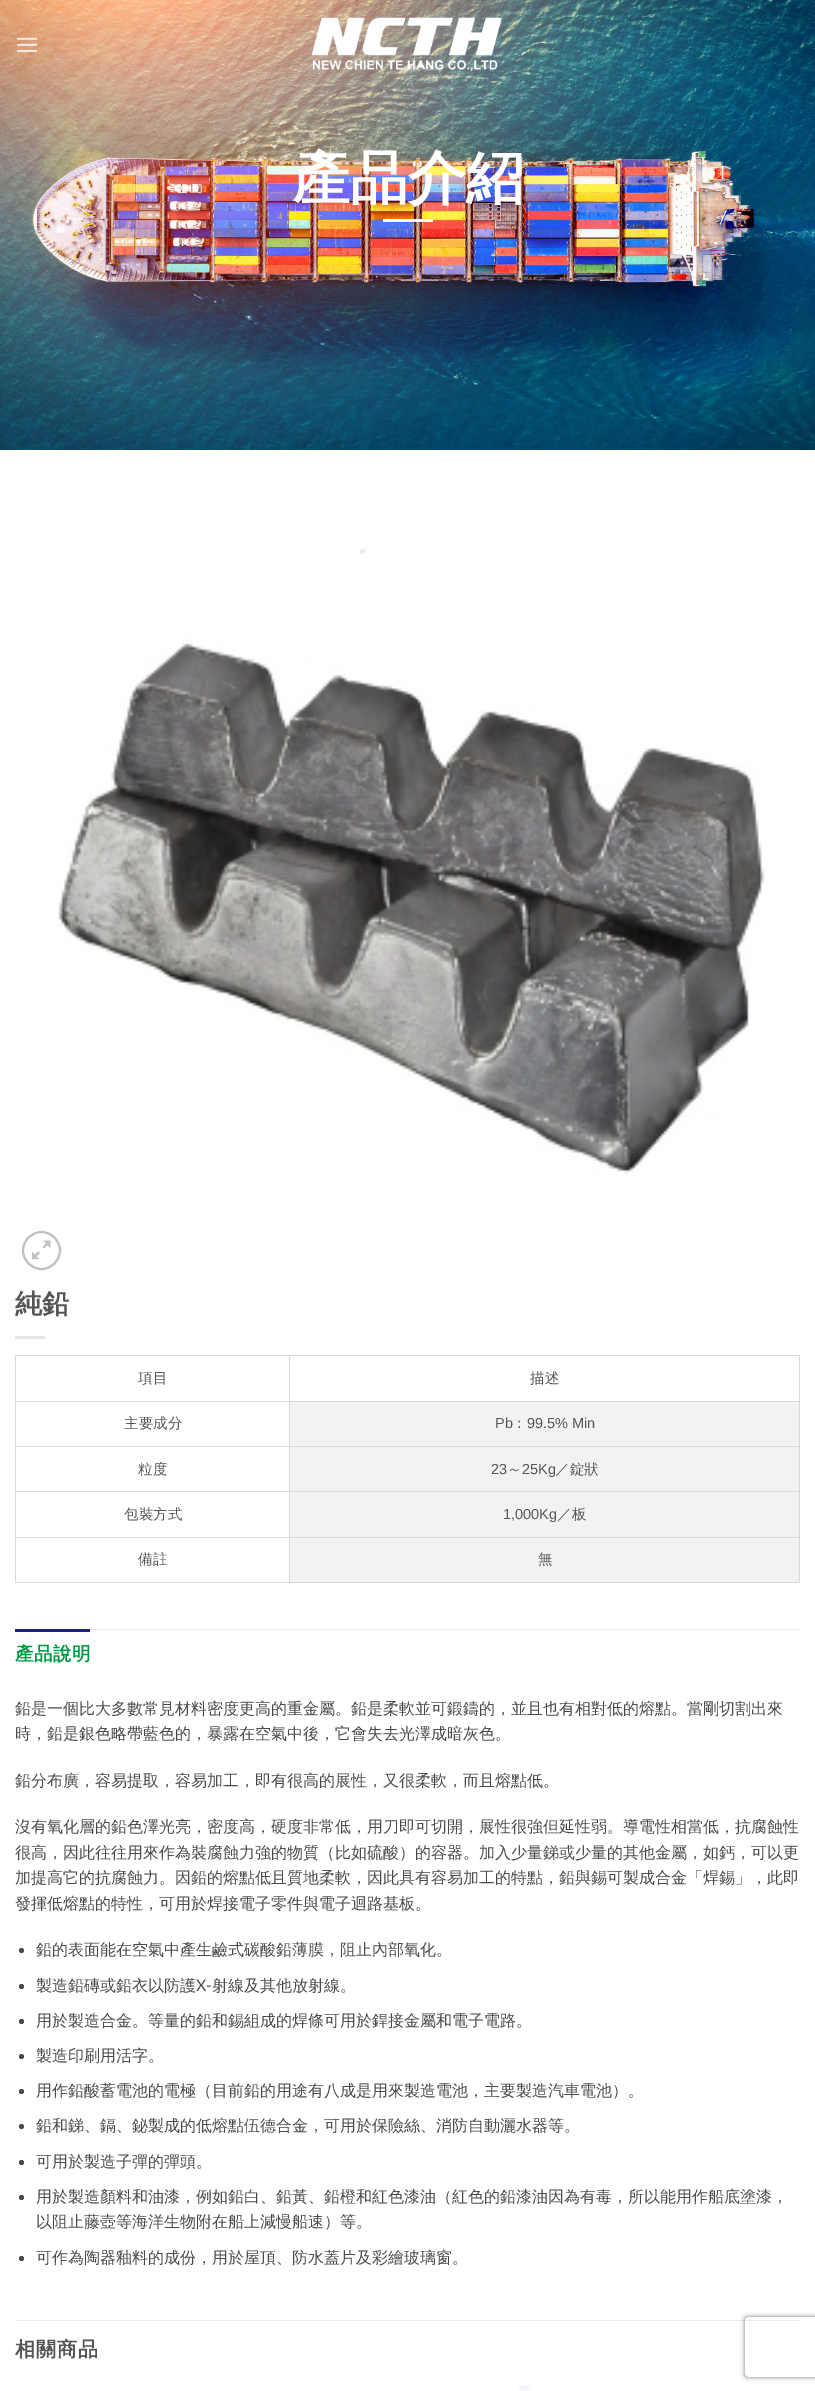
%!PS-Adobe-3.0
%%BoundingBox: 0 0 815 2391
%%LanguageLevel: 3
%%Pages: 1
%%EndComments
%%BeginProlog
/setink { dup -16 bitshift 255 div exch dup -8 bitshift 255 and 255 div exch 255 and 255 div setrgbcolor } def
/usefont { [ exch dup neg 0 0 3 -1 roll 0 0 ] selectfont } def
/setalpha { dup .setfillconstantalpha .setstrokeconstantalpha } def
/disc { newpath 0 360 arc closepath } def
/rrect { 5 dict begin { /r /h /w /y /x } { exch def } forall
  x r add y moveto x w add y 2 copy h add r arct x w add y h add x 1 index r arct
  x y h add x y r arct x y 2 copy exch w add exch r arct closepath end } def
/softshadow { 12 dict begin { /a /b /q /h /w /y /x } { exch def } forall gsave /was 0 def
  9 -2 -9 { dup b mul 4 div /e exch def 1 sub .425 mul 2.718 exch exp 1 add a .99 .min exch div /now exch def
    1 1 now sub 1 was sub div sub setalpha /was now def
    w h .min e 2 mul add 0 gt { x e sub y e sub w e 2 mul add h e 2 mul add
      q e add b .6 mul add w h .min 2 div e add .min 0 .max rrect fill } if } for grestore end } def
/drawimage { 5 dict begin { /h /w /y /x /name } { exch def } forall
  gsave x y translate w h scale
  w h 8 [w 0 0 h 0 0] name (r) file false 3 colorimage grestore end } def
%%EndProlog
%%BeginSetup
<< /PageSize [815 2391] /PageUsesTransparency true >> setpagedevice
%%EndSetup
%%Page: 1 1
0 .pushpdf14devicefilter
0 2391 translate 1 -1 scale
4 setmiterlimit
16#FFFFFF setink
0 0 815 2391 rectfill
(img3.raw) 0 0 815 450 drawimage
(img1.raw) 17 37 21 15 drawimage
(img2.raw) 311 17 191 55 drawimage
/WenQuanYiZenHei-Bold 58 usefont
292 198 moveto (產品介紹) show
383 219 50 3 rectfill
(img4.raw) 58 548 707 626 drawimage
16#C0C0C0 setink
2 setlinewidth
41.5 1250.5 18.5 disc stroke
(img5.raw) 32 1240 19 20 drawimage
/WenQuanYiZenHei-Bold 27 usefont
16#555555 setink
15 1313 moveto (純鉛) show
[
    [15 1336 30 3 16#E6E6E6]
    [15 1355 785 1 16#D9D9D9]
    [799 1401 1 182 16#D9D9D9]
    [799 1355 1 47 16#D9D9D9]
    [289 1582 511 1 16#D9D9D9]
    [289 1537 1 46 16#D9D9D9]
    [289 1537 511 1 16#D9D9D9]
    [289 1491 1 47 16#D9D9D9]
    [289 1491 511 1 16#D9D9D9]
    [289 1446 1 46 16#D9D9D9]
    [289 1446 511 1 16#D9D9D9]
    [289 1401 1 46 16#D9D9D9]
    [289 1401 511 1 16#D9D9D9]
    [289 1355 1 47 16#D9D9D9]
    [15 1582 275 1 16#D9D9D9]
    [15 1537 1 46 16#D9D9D9]
    [15 1537 275 1 16#D9D9D9]
    [15 1491 1 47 16#D9D9D9]
    [15 1491 275 1 16#D9D9D9]
    [15 1446 1 46 16#D9D9D9]
    [15 1446 275 1 16#D9D9D9]
    [15 1401 1 46 16#D9D9D9]
    [15 1401 275 1 16#D9D9D9]
    [15 1355 1 47 16#D9D9D9]
] { aload pop setink rectfill } forall
/WenQuanYiZenHei-Medium 14.5 usefont
16#555555 setink
[
    [(項目) 138 1383]
    [(描述) 530 1383]
    [(主要成分) 124 1428]
] { aload pop moveto show } forall
16#F2F2F2 setink
290 1402 509 44 rectfill
/LiberationSans-Regular 14.5 usefont
16#555555 setink
495 1428 moveto (Pb) show
/WenQuanYiZenHei-Medium 14.5 usefont
512 1428 moveto (：) show
/LiberationSans-Regular 14.5 usefont
527 1428 moveto (99.5% Min) show
/WenQuanYiZenHei-Medium 14.5 usefont
138 1474 moveto (粒度) show
16#F2F2F2 setink
290 1447 509 44 rectfill
/LiberationSans-Regular 14.5 usefont
16#555555 setink
491 1474 moveto (23) show
/WenQuanYiZenHei-Medium 14.5 usefont
507 1474 moveto (～) show
/LiberationSans-Regular 14.5 usefont
522 1474 moveto (25Kg) show
/WenQuanYiZenHei-Medium 14.5 usefont
555 1474 moveto (／錠狀) show
124 1519 moveto (包裝方式) show
16#F2F2F2 setink
290 1492 509 45 rectfill
/LiberationSans-Regular 14.5 usefont
16#555555 setink
503 1519 moveto (1,000Kg) show
/WenQuanYiZenHei-Medium 14.5 usefont
557 1519 moveto (／板) show
138 1564 moveto (備註) show
16#F2F2F2 setink
290 1538 509 44 rectfill
16#555555 setink
538 1564 moveto (無) show
16#ECECEC setink
90 1629 710 1 rectfill
16#1D2089 setink
15 1629 75 3 rectfill
/WenQuanYiZenHei-Bold 18.5 usefont
16#009A44 setink
15 1660 moveto 0.5 0 (產品說明) ashow
/WenQuanYiZenHei-Medium 16 usefont
16#4A4A4A setink
[
    [(鉛是一個比大多數常見材料密度更高的重金屬。鉛是柔軟並可鍛鑄的，並且也有相對低的熔點。當剛切割出來) 15 1714]
    [(時，鉛是銀色略帶藍色的，暴露在空氣中後，它會失去光澤成暗灰色。) 15 1739]
    [(鉛分布廣，容易提取，容易加工，即有很高的展性，又很柔軟，而且熔點低。) 15 1786]
    [(沒有氧化層的鉛色澤光亮，密度高，硬度非常低，用刀即可切開，展性很強但延性弱。導電性相當低，抗腐蝕性) 15 1832]
    [(很高，因此往往用來作為裝腐蝕力強的物質（比如硫酸）的容器。加入少量銻或少量的其他金屬，如鈣，可以更) 15 1858]
    [(加提高它的抗腐蝕力。因鉛的熔點低且質地柔軟，因此具有容易加工的特點，鉛與錫可製成合金「焊錫」，此即) 15 1883]
    [(發揮低熔點的特性，可用於焊接電子零件與電子迴路基板。) 15 1909]
] { aload pop moveto show } forall
21.5 1950.5 2.5 disc fill
36 1955 moveto (鉛的表面能在空氣中產生鹼式碳酸鉛薄膜，阻止內部氧化。) show
21.5 1986.5 2.5 disc fill
36 1991 moveto (製造鉛磚或鉛衣以防護) show
/Lato-Regular 16 usefont
196 1991 moveto (X-) show
/WenQuanYiZenHei-Medium 16 usefont
212 1991 moveto (射線及其他放射線。) show
21.5 2021.5 2.5 disc fill
36 2026 moveto (用於製造合金。等量的鉛和錫組成的焊條可用於銲接金屬和電子電路。) show
21.5 2056.5 2.5 disc fill
36 2061 moveto (製造印刷用活字。) show
21.5 2091.5 2.5 disc fill
36 2096 moveto (用作鉛酸蓄電池的電極（目前鉛的用途有八成是用來製造電池，主要製造汽車電池）。) show
21.5 2126.5 2.5 disc fill
36 2131 moveto (鉛和銻、鎘、鉍製成的低熔點伍德合金，可用於保險絲、消防自動灑水器等。) show
21.5 2162.5 2.5 disc fill
36 2167 moveto (可用於製造子彈的彈頭。) show
21.5 2197.5 2.5 disc fill
36 2202 moveto (用於製造顏料和油漆，例如鉛白、鉛黃、鉛橙和紅色漆油（紅色的鉛漆油因為有毒，所以能用作船底塗漆，) show
36 2227 moveto (以阻止藤壺等海洋生物附在船上減慢船速）等。) show
21.5 2258.5 2.5 disc fill
36 2263 moveto (可作為陶器釉料的成份，用於屋頂、防水蓋片及彩繪玻璃窗。) show
16#ECECEC setink
15 2320 785 1 rectfill
/WenQuanYiZenHei-Bold 20 usefont
16#555555 setink
15 2356 moveto 1 0 (相關商品) ashow
(img6.raw) 519 2385 13 6 drawimage
gsave
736 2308 moveto 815 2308 lineto 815 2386 lineto 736 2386 lineto closepath 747 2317 moveto 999 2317 lineto 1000 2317 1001 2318 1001 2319 curveto 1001 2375 lineto 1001 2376 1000 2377 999 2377 curveto 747 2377 lineto 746 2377 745 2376 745 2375 curveto 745 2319 lineto 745 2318 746 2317 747 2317 curveto closepath eoclip newpath
16#808080 setink
745 2317 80 60 2 2.5 1 softshadow
grestore
.poppdf14devicefilter showpage
%%EOF
